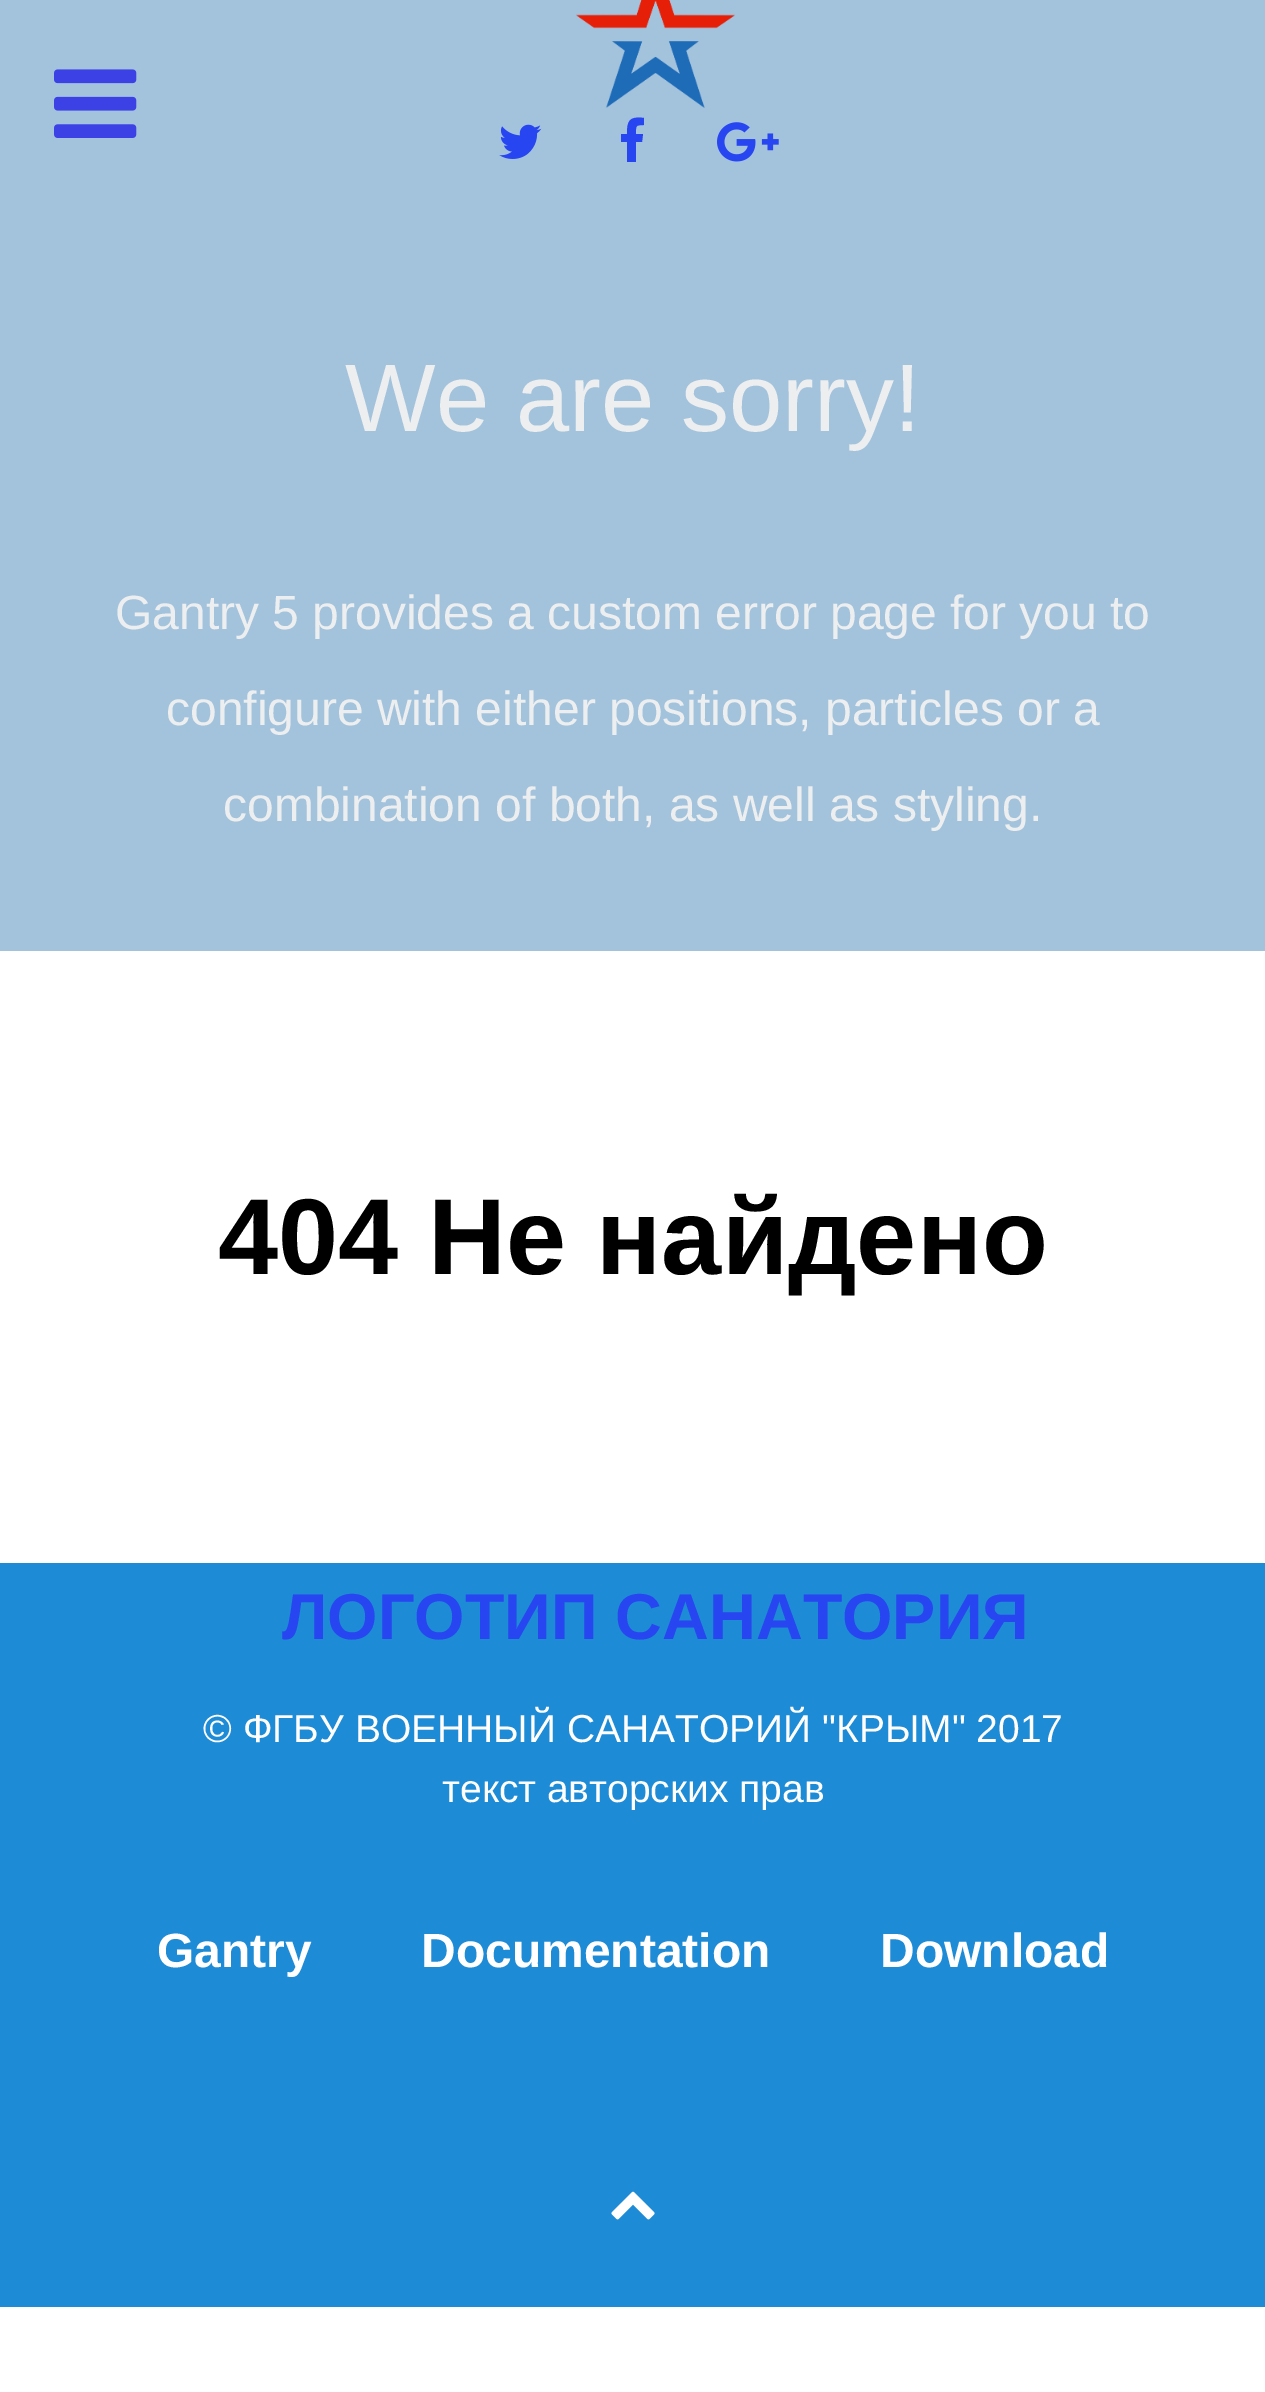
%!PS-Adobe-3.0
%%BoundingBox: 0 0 1265 2392
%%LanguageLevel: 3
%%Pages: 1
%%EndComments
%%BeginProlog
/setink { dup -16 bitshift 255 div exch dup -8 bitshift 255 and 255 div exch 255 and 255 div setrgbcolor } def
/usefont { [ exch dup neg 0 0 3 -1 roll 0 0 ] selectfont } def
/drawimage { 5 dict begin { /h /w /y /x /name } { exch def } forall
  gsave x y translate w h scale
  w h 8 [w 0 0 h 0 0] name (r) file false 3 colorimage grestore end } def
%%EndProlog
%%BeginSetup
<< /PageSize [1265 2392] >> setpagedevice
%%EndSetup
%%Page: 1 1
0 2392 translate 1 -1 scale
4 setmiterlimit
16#FFFFFF setink
0 0 1265 2392 rectfill
16#A3C3DC setink
0 0 1265 951 rectfill
(img1.raw) 54 69 83 69 drawimage
(img2.raw) 576 0 159 108 drawimage
(img3.raw) 499 124 43 35 drawimage
16#2745F0 setink
644 118 moveto 644 125 lineto 635 125 636 126 636 134 curveto 643 134 lineto 642 142 lineto 636 142 lineto 636 162 lineto 627 162 lineto 627 142 lineto 621 142 lineto 621 134 lineto 627 134 lineto 627 121 629 116 644 118 curveto closepath fill
(img4.raw) 717 122 62 40 drawimage
/LiberationSans-Regular 96 usefont
16#ECEEEF setink
345 431 moveto (We are sorry!) show
/LiberationSans-Regular 48 usefont
[
    [(Gantry 5 provides a custom error page for you to) 115 629]
    [(configure with either positions, particles or a) 166 725]
    [(combination of both, as well as styling.) 223 821]
] { aload pop moveto show } forall
/LiberationSans-Bold 108 usefont
16#000000 setink
218 1274 moveto (404 Не найдено) show
16#1E8BD6 setink
0 1563 1265 744 rectfill
/LiberationSans-Bold 64.75 usefont
16#2745F0 setink
282 1639 moveto (ЛОГОТИП САНАТОРИЯ) show
/LiberationSans-Regular 39 usefont
16#FFFFFF setink
203 1742 moveto (© ФГБУ ВОЕННЫЙ САНАТОРИЙ "КРЫМ" 2017) show
442 1802 moveto (текст авторских прав) show
/LiberationSans-Bold 48 usefont
[
    [(Gantry) 157 1967]
    [(Documentation) 421 1967]
    [(Download) 880 1967]
] { aload pop moveto show } forall
(img5.raw) 611 2191 44 29 drawimage
showpage
%%EOF
